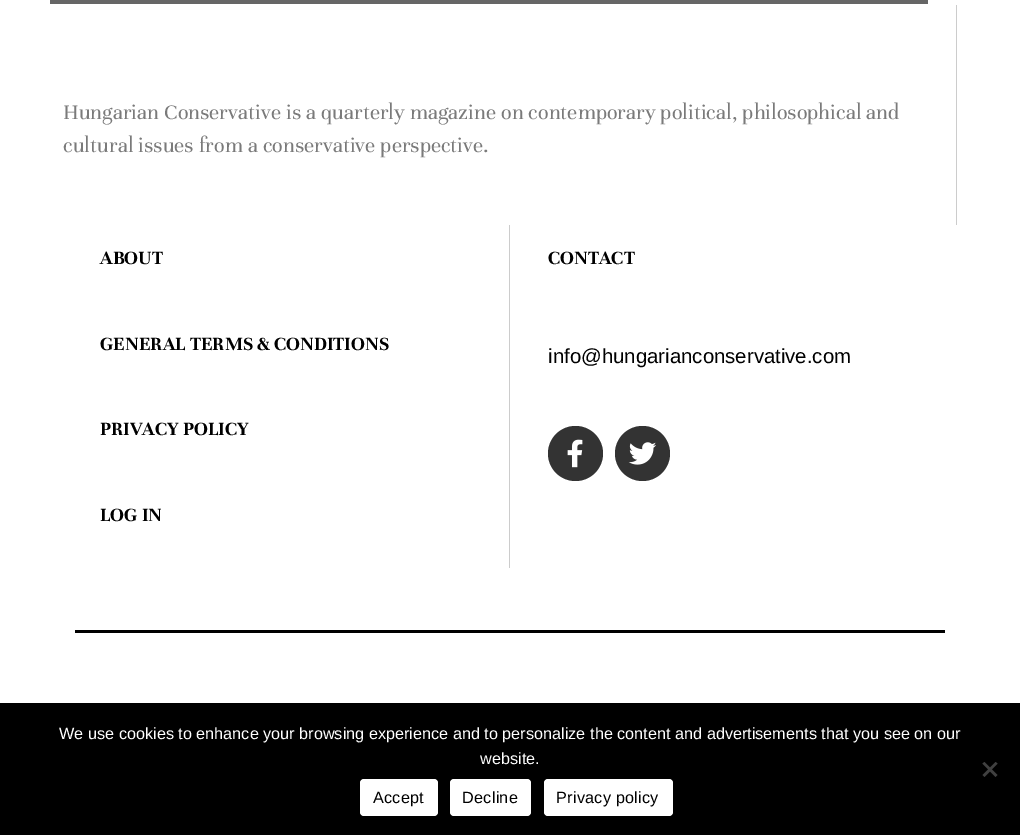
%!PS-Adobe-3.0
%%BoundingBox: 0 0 1020 835
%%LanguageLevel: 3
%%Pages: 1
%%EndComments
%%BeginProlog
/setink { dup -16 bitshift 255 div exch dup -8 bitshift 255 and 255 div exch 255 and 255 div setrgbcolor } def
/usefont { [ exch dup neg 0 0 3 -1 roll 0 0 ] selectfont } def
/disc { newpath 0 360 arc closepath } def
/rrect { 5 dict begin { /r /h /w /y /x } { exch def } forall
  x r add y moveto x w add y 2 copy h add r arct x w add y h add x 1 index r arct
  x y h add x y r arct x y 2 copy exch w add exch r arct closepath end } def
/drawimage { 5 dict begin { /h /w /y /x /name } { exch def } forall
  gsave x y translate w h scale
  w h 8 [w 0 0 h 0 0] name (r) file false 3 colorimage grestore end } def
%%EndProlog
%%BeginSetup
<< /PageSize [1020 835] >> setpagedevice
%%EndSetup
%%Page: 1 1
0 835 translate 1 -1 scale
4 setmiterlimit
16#FFFFFF setink
0 0 1020 835 rectfill
16#666666 setink
50 0 878 4 rectfill
16#CCCCCC setink
956 5 1 220 rectfill
/Unna-Regular 22.5 usefont
16#7A7A7A setink
63 119 moveto (Hungarian Conservative is a quarterly magazine on contemporary political, philosophical and) show
63 152 moveto (cultural issues from a conservative perspective.) show
16#CCCCCC setink
509 225 1 343 rectfill
/Unna-Bold 20.4 usefont
16#000000 setink
[
    [(ABOUT) 100 264]
    [(GENERAL TERMS & CONDITIONS) 100 350]
    [(PRIVACY POLICY) 100 435]
    [(LOG IN) 100 521]
    [(CONTACT) 548 264]
] { aload pop moveto show } forall
/LiberationSans-Regular 20.4 usefont
548 363 moveto (info@hungarianconservative.com) show
16#333333 setink
575.5 453.5 27.5 disc fill
(img1.raw) 567 439 16 29 drawimage
642.5 453.5 27.5 disc fill
(img2.raw) 628 442 28 23 drawimage
16#000000 setink
75 630 870 3 rectfill
0 703 1020 132 rectfill
/LiberationSans-Regular 16.25 usefont
16#FFFFFF setink
59 739 moveto (We use cookies to enhance your browsing experience and to personalize the content and advertisements that you see on our) show
480 764 moveto (website.) show
16#404040 setink
995.5 762 moveto 997.5 763.5 lineto 984.5 777 lineto 982.5 775 lineto closepath fill
982.5 763.5 moveto 984.5 762 lineto 997.5 775 lineto 995.5 777 lineto closepath fill
16#FFFFFF setink
360 779 78 37 4 rrect fill
16#000000 setink
373 803 moveto 0.25 0 (Accept) ashow
16#FFFFFF setink
450 779 81 37 4 rrect fill
16#000000 setink
462 803 moveto 0.25 0 (Decline) ashow
16#FFFFFF setink
544 779 129 37 4 rrect fill
16#000000 setink
556 803 moveto 0.25 0 (Privacy policy) ashow
showpage
%%EOF
